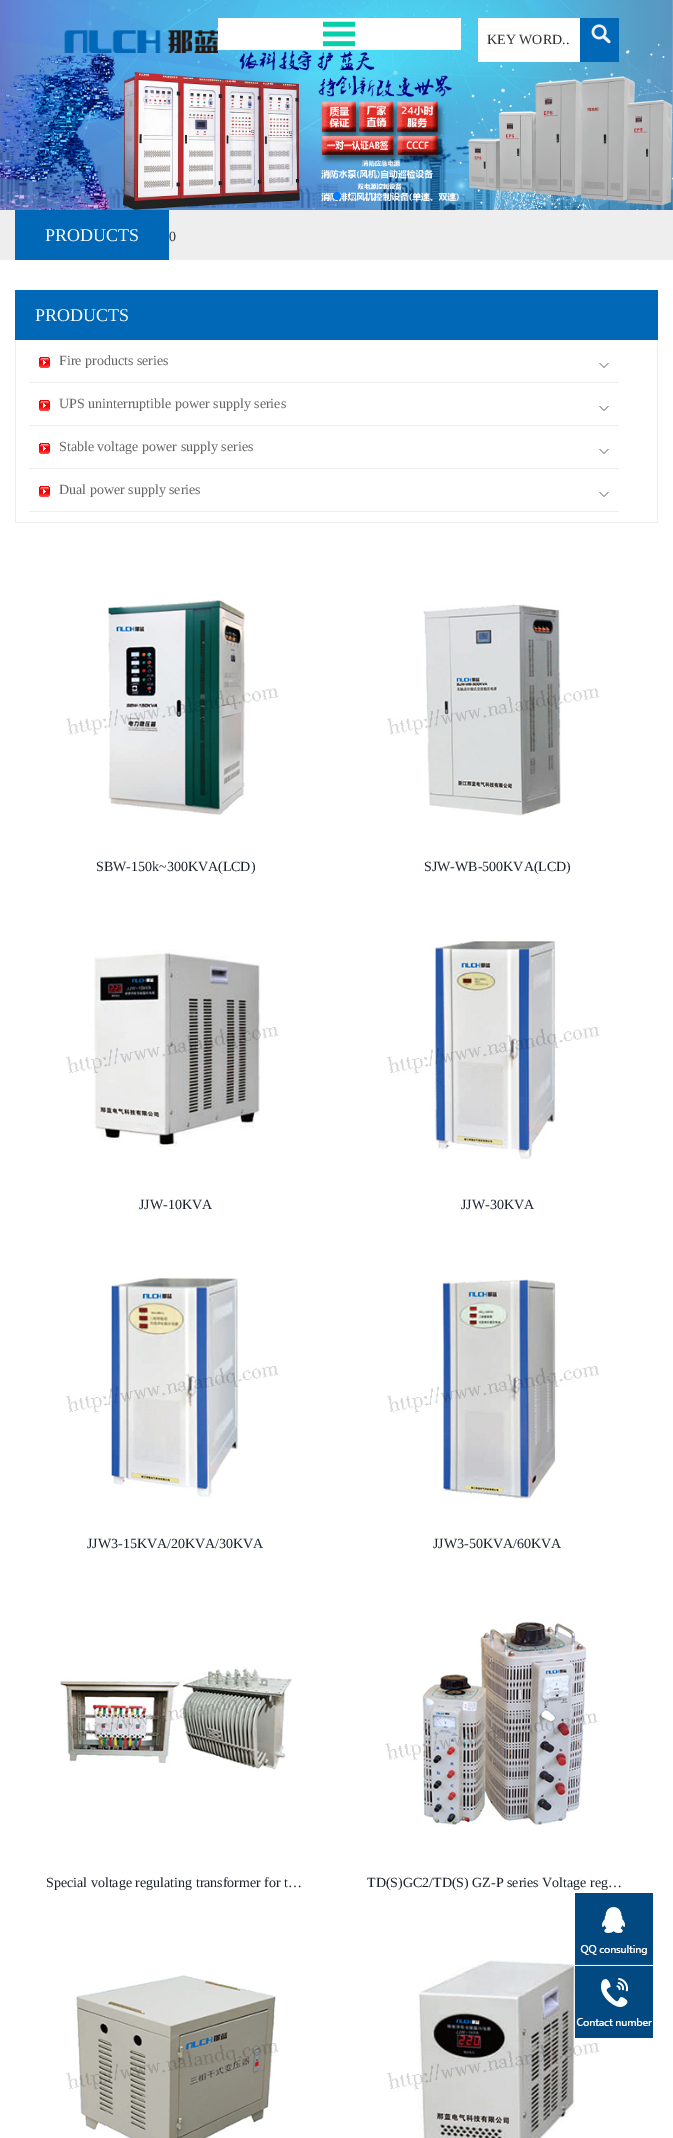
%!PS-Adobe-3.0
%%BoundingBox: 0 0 673 2138
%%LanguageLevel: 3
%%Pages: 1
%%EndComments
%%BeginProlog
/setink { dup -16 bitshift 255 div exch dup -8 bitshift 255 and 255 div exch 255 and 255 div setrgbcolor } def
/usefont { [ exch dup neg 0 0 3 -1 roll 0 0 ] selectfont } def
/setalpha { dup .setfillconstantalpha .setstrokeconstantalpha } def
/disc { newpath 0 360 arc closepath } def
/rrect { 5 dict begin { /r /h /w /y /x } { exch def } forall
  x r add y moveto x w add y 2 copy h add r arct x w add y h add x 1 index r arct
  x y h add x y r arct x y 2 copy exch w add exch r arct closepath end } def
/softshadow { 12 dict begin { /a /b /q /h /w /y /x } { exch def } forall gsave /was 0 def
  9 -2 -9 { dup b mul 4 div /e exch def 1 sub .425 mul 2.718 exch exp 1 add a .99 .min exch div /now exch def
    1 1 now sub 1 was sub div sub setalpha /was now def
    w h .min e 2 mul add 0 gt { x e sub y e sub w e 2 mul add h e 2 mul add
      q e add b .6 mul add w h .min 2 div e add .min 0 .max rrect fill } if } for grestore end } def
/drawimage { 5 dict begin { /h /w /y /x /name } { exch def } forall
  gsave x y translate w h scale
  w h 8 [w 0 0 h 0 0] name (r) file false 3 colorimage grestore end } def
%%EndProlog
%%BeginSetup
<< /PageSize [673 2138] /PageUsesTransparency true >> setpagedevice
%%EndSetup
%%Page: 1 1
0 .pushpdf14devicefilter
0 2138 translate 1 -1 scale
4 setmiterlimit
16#FFFFFF setink
0 0 673 2138 rectfill
(img1.raw) 0 0 673 210 drawimage
16#007AFF setink
337 196 4 disc fill
0.2 setalpha
16#000000 setink
352.5 196.5 2.5 disc fill
368.5 196.5 1.5 disc fill
1 setalpha
(img2.raw) 64 30 154 23 drawimage
16#FFFFFF setink
218 18 243 32 rectfill
(img3.raw) 323 21 32 26 drawimage
478 18 102 44 rectfill
/LiberationSerif-Regular 14 usefont
16#333333 setink
487 44 moveto (KEY WORD..) show
16#0068B7 setink
580 18 39 44 rectfill
(img4.raw) 591 24 20 20 drawimage
16#EEEEEE setink
0 210 673 50 rectfill
16#0068B7 setink
15 210 154 50 rectfill
/LiberationSerif-Regular 18 usefont
16#FFFFFF setink
45 241 moveto (PRODUCTS) show
/LiberationSerif-Regular 14 usefont
16#333333 setink
169 241 moveto (0) show
16#0068B7 setink
15 290 643 50 rectfill
/LiberationSerif-Regular 18 usefont
16#FFFFFF setink
35 321 moveto (PRODUCTS) show
[
    [657 340 1 183 16#EEEEEE]
    [15 522 643 1 16#EEEEEE]
    [15 340 1 183 16#EEEEEE]
    [29 382 590 1 16#EFEFEF]
] { aload pop setink rectfill } forall
(img5.raw) 39 357 11 11 drawimage
/LiberationSerif-Regular 14 usefont
16#666666 setink
59 365 moveto (Fire products series) show
(img6.raw) 599 363 10 5 drawimage
16#EFEFEF setink
29 425 590 1 rectfill
(img5.raw) 39 400 11 11 drawimage
16#666666 setink
59 408 moveto (UPS uninterruptible power supply series) show
(img6.raw) 599 406 10 5 drawimage
16#EFEFEF setink
29 468 590 1 rectfill
(img5.raw) 39 443 11 11 drawimage
16#666666 setink
59 451 moveto (Stable voltage power supply series) show
(img6.raw) 599 449 10 5 drawimage
16#EFEFEF setink
29 511 590 1 rectfill
(img5.raw) 39 486 11 11 drawimage
16#666666 setink
59 494 moveto (Dual power supply series) show
(img6.raw) 599 492 10 5 drawimage
(img7.raw) 66 600 213 215 drawimage
16#1B242F setink
96 871 moveto (SBW-150k~300KVA\(LCD\)) show
(img8.raw) 387 604 213 212 drawimage
424 871 moveto (SJW-WB-500KVA\(LCD\)) show
(img9.raw) 66 949 213 198 drawimage
139 1209 moveto (JJW-10KVA) show
(img10.raw) 387 941 213 219 drawimage
461 1209 moveto (JJW-30KVA) show
(img11.raw) 66 1277 213 220 drawimage
87 1548 moveto (JJW3-15KVA/20KVA/30KVA) show
(img12.raw) 387 1279 213 220 drawimage
433 1548 moveto (JJW3-50KVA/60KVA) show
(img13.raw) 60 1667 232 103 drawimage
46 1887 moveto (Special voltage regulating transformer for t…) show
(img14.raw) 385 1622 213 205 drawimage
367 1887 moveto (TD\(S\)GC2/TD\(S\) GZ-P series Voltage reg…) show
(img15.raw) 66 1975 213 163 drawimage
(img16.raw) 387 1960 213 178 drawimage
(img17.raw) 575 1893 78 72 drawimage
16#FFFFFF setink
575 1966 78 72 0 1.5 0.3 softshadow
(img18.raw) 575 1966 78 72 drawimage
.poppdf14devicefilter showpage
%%EOF
